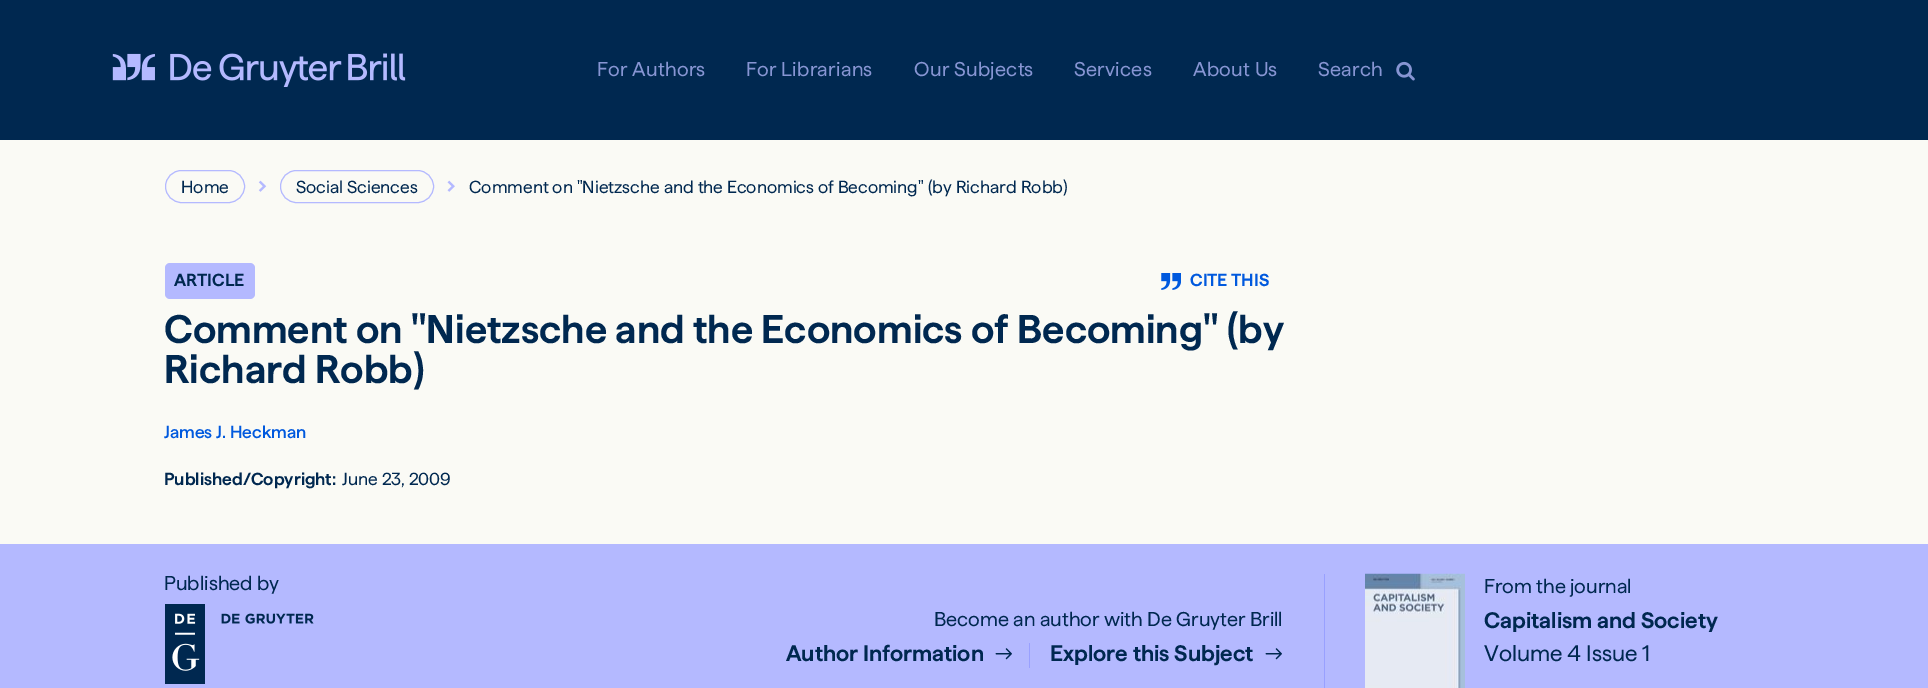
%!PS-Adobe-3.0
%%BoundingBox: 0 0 1928 688
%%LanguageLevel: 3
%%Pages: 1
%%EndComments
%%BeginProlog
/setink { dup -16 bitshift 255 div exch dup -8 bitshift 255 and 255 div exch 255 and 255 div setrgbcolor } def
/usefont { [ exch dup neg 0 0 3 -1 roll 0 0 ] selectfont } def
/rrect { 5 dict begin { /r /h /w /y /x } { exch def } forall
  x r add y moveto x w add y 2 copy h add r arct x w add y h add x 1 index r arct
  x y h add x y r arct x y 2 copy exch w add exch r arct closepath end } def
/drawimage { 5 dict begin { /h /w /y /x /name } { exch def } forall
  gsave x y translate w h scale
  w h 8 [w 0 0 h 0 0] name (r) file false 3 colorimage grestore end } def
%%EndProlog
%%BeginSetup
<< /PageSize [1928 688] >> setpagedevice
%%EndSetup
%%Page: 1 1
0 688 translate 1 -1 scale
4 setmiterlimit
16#FAFAF5 setink
0 0 1928 688 rectfill
16#002850 setink
0 0 1928 140 rectfill
(img1.raw) 112 53 294 34 drawimage
/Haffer-Italic 20 usefont
16#8795D3 setink
597 76 moveto 0.25 0 (For Authors) ashow
746 76 moveto 0.25 0 (For Librarians) ashow
914 76 moveto 0.25 0 (Our Subjects) ashow
1074 76 moveto 0.25 0 (Services) ashow
1193 76 moveto 0.25 0 (About Us) ashow
1318 76 moveto 0.25 0 (Search) ashow
(img2.raw) 1396 61 19 20 drawimage
16#B4B9FF setink
165.5 170.5 79 32 16 rrect stroke
/Haffer-Italic 17.5 usefont
16#002850 setink
181 193 moveto (Home) show
(img3.raw) 258 180 9 12 drawimage
16#B4B9FF setink
280.5 170.5 153 32 16 rrect stroke
16#002850 setink
296 193 moveto (Social Sciences) show
(img4.raw) 447 180 8 12 drawimage
469 193 moveto (Comment on "Nietzsche and the Economics of Becoming" \(by Richard Robb\)) show
16#B4B9FF setink
165 263 90 36 5 rrect fill
/Haffer-BoldItalic 17.5 usefont
16#002850 setink
174 286 moveto (ARTICLE) show
(img5.raw) 1161 273 20 17 drawimage
16#0059DE setink
1190 286 moveto (CITE THIS) show
/Haffer-BoldItalic 40 usefont
16#002850 setink
164 343 moveto (Comment on "Nietzsche and the Economics of Becoming" \(by) show
164 383 moveto (Richard Robb\)) show
/Haffer-SemiBoldItalic 17.5 usefont
16#0059DE setink
164 438 moveto (James J. Heckman) show
/Haffer-BoldItalic 17.5 usefont
16#002850 setink
164 485 moveto (Published/Copyright:) show
/Haffer-Italic 17.5 usefont
342 485 moveto (June 23, 2009) show
16#B4B9FF setink
0 544 1928 144 rectfill
/Haffer-Italic 20 usefont
16#002850 setink
164 590 moveto (Published by) show
(img6.raw) 165 604 149 80 drawimage
16#99A0FF setink
1324 574 1 114 rectfill
16#002850 setink
934 626 moveto (Become an author with De Gruyter Brill) show
/Haffer-BoldItalic 22.5 usefont
786 661 moveto (Author Information) show
(img7.raw) 995 648 17 12 drawimage
16#99A0FF setink
1029 643 1 25 rectfill
16#002850 setink
1050 661 moveto (Explore this Subject) show
(img8.raw) 1265 648 17 12 drawimage
(img9.raw) 1365 573 100 115 drawimage
/Haffer-Italic 20 usefont
1484 593 moveto (From the journal) show
/Haffer-BoldItalic 22.5 usefont
1484 628 moveto (Capitalism and Society) show
/Haffer-Italic 22.5 usefont
1484 661 moveto (Volume 4 Issue 1) show
showpage
%%EOF
